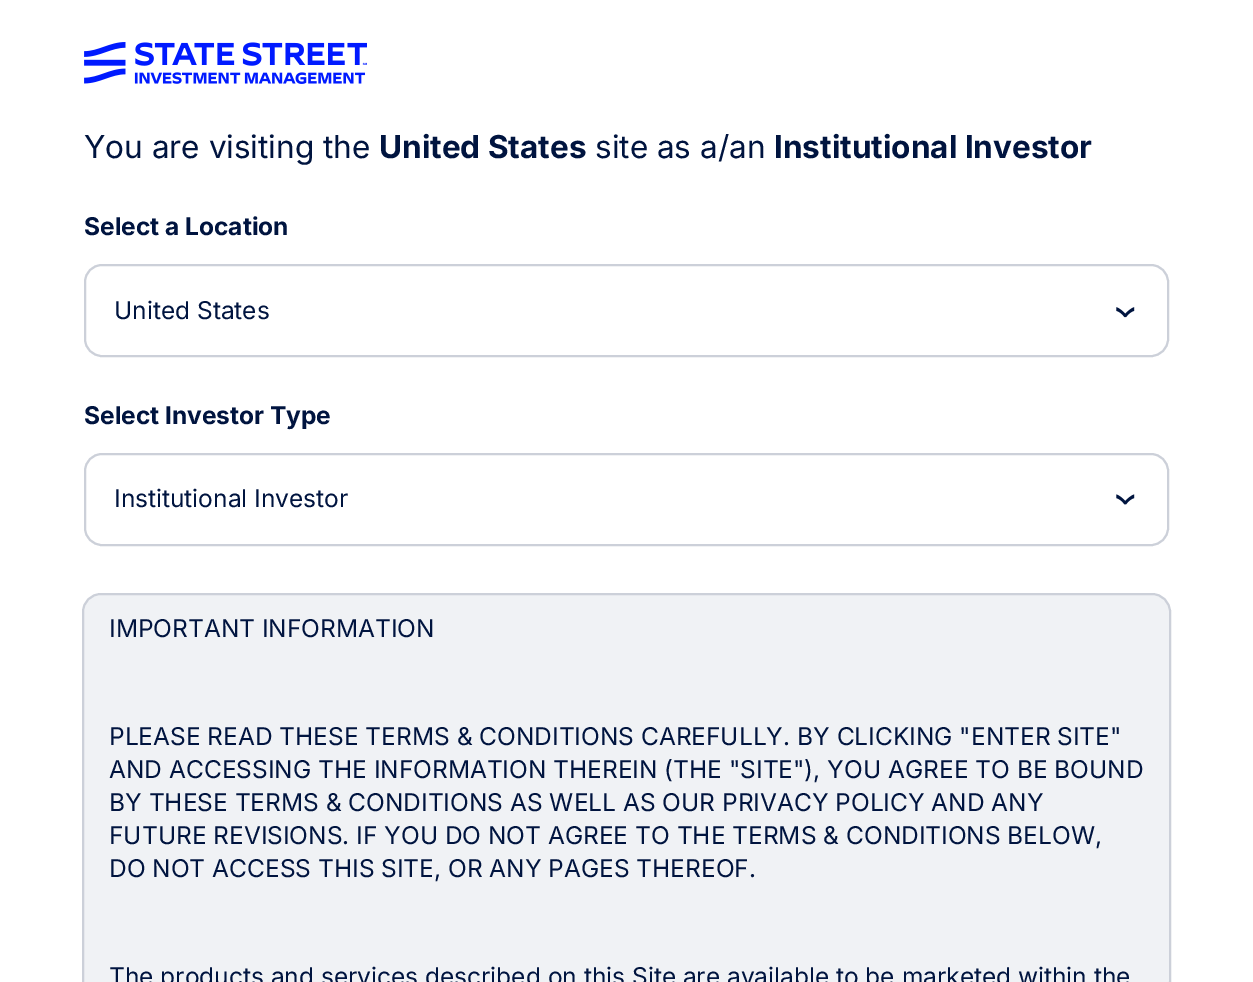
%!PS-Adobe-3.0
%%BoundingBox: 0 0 1253 982
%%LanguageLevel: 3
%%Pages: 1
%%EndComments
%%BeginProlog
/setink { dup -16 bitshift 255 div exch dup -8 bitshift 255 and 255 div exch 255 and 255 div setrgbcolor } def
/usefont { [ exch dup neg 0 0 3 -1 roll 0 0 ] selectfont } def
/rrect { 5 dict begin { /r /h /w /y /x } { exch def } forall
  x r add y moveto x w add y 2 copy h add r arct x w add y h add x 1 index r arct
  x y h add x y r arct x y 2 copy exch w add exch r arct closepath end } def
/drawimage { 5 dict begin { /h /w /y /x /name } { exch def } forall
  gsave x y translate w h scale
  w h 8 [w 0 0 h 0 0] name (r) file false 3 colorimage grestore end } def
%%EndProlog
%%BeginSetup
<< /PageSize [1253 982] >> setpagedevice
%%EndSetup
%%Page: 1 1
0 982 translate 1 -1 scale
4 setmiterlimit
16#FFFFFF setink
0 0 1253 982 rectfill
(img1.raw) 84 42 283 42 drawimage
/Inter-Regular 31.5 usefont
16#00143F setink
84 158 moveto (You are visiting the) show
/Inter-Bold 31.5 usefont
379 158 moveto (United States) show
/Inter-Regular 31.5 usefont
595 158 moveto (site as a/an) show
/Inter-Bold 31.5 usefont
774 158 moveto (Institutional Investor) show
/Inter-Bold 24.5 usefont
84 235 moveto (Select a Location) show
16#CCD0D9 setink
2 setlinewidth
85 265 1083 91 17 rrect stroke
/Inter-Regular 24.5 usefont
16#00143F setink
114 319 moveto (United States) show
(img2.raw) 1116 307 19 11 drawimage
/Inter-Bold 24.5 usefont
84 424 moveto (Select Investor Type) show
16#CCD0D9 setink
85 454 1083 91 17 rrect stroke
/Inter-Regular 24.5 usefont
16#00143F setink
114 507 moveto (Institutional Investor) show
(img3.raw) 1116 494 19 11 drawimage
16#F0F2F5 setink
84 595 1085 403 18 rrect fill
16#CCD0D9 setink
83 594 1087 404 18 rrect stroke
16#00143F setink
[
    [(IMPORTANT INFORMATION) 109 637]
    [(PLEASE READ THESE TERMS & CONDITIONS CAREFULLY. BY CLICKING "ENTER SITE") 109 745]
    [(AND ACCESSING THE INFORMATION THEREIN \(THE "SITE"\), YOU AGREE TO BE BOUND) 109 778]
    [(BY THESE TERMS & CONDITIONS AS WELL AS OUR PRIVACY POLICY AND ANY) 109 811]
    [(FUTURE REVISIONS. IF YOU DO NOT AGREE TO THE TERMS & CONDITIONS BELOW,) 109 844]
    [(DO NOT ACCESS THIS SITE, OR ANY PAGES THEREOF.) 109 877]
    [(The products and services described on this Site are available to be marketed within the) 109 985]
] { aload pop moveto show } forall
showpage
%%EOF
